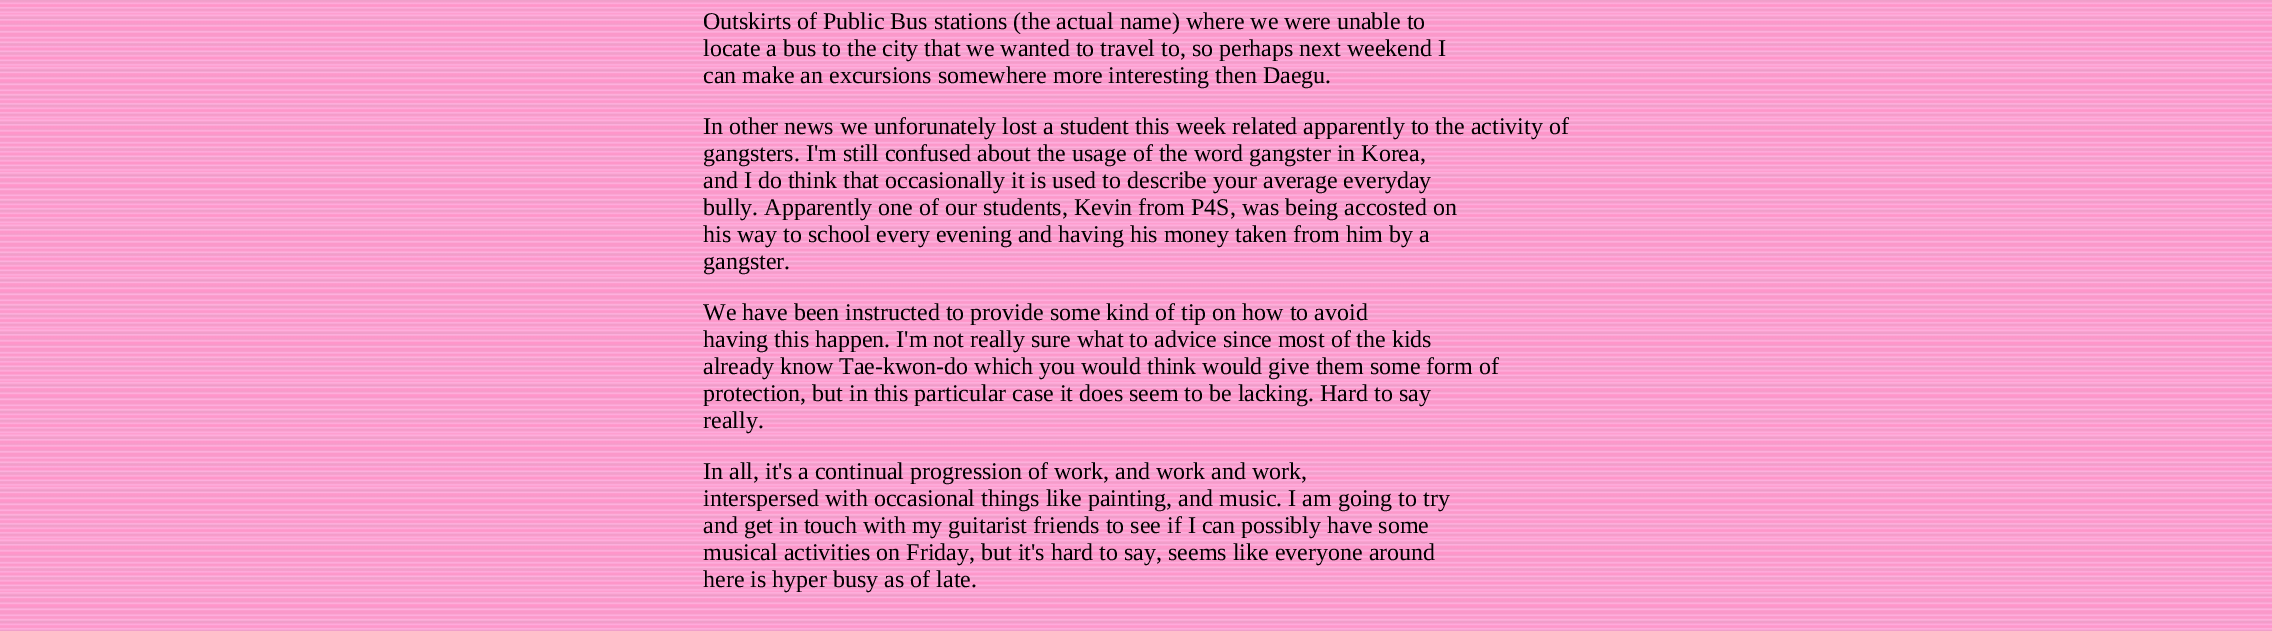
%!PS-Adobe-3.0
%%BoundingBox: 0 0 2272 631
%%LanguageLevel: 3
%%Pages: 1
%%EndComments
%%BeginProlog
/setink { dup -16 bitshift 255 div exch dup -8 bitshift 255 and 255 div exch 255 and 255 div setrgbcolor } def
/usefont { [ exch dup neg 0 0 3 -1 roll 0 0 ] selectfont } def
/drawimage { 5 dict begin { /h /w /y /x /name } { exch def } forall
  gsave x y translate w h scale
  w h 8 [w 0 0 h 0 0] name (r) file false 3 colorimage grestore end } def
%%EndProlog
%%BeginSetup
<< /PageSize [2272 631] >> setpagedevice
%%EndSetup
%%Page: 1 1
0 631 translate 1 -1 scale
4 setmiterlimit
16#FFFFFF setink
0 0 2272 631 rectfill
(img1.raw) 0 0 2272 631 drawimage
/LiberationSerif-Regular 24 usefont
16#000000 setink
[
    [(Outskirts of Public Bus stations \(the actual name\) where we were unable to) 703 29]
    [(locate a bus to the city that we wanted to travel to, so perhaps next weekend I) 703 56]
    [(can make an excursions somewhere more interesting then Daegu.) 703 83]
    [(In other news we unforunately lost a student this week related apparently to the activity of) 703 134]
    [(gangsters. I'm still confused about the usage of the word gangster in Korea,) 703 161]
    [(and I do think that occasionally it is used to describe your average everyday) 703 188]
    [(bully. Apparently one of our students, Kevin from P4S, was being accosted on) 703 215]
    [(his way to school every evening and having his money taken from him by a) 703 242]
    [(gangster.) 703 269]
    [(We have been instructed to provide some kind of tip on how to avoid) 703 320]
    [(having this happen. I'm not really sure what to advice since most of the kids) 703 347]
    [(already know Tae-kwon-do which you would think would give them some form of) 703 374]
    [(protection, but in this particular case it does seem to be lacking. Hard to say) 703 401]
    [(really.) 703 428]
    [(In all, it's a continual progression of work, and work and work,) 703 479]
    [(interspersed with occasional things like painting, and music. I am going to try) 703 506]
    [(and get in touch with my guitarist friends to see if I can possibly have some) 703 533]
    [(musical activities on Friday, but it's hard to say, seems like everyone around) 703 560]
    [(here is hyper busy as of late.) 703 587]
] { aload pop moveto show } forall
showpage
%%EOF
